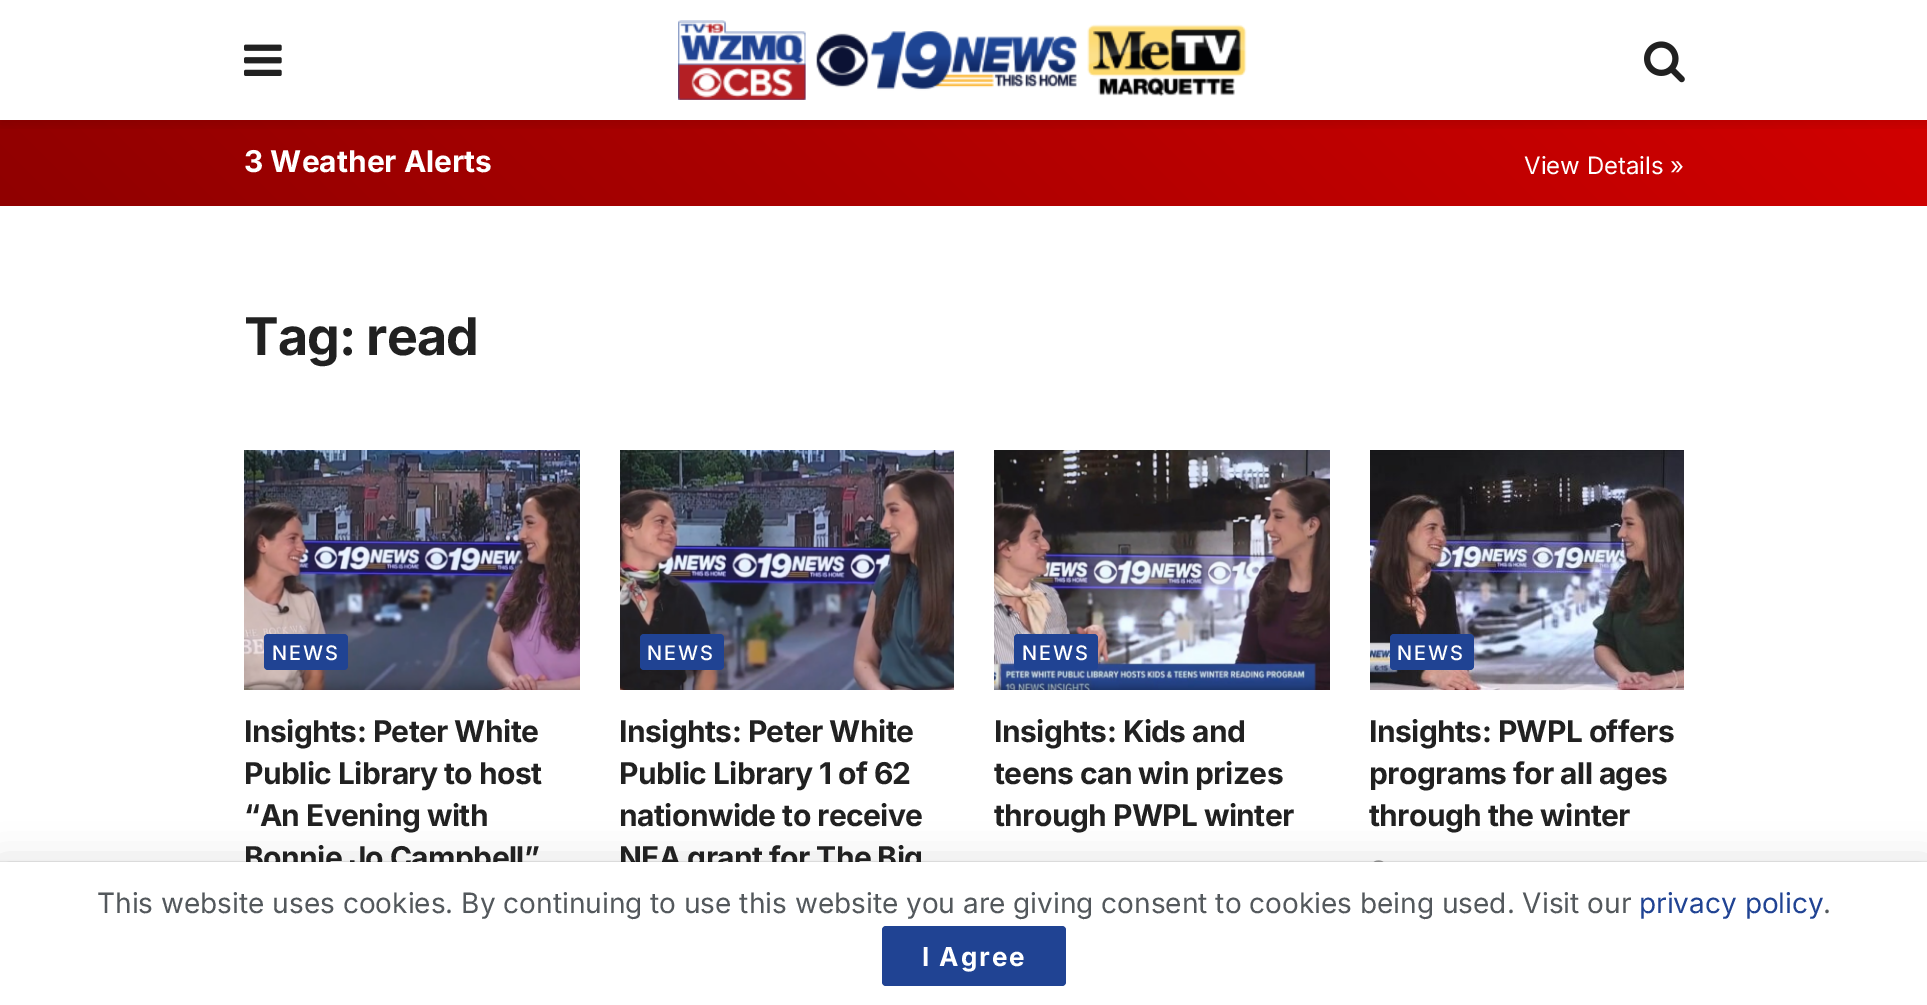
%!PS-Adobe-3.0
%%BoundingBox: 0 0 1927 1005
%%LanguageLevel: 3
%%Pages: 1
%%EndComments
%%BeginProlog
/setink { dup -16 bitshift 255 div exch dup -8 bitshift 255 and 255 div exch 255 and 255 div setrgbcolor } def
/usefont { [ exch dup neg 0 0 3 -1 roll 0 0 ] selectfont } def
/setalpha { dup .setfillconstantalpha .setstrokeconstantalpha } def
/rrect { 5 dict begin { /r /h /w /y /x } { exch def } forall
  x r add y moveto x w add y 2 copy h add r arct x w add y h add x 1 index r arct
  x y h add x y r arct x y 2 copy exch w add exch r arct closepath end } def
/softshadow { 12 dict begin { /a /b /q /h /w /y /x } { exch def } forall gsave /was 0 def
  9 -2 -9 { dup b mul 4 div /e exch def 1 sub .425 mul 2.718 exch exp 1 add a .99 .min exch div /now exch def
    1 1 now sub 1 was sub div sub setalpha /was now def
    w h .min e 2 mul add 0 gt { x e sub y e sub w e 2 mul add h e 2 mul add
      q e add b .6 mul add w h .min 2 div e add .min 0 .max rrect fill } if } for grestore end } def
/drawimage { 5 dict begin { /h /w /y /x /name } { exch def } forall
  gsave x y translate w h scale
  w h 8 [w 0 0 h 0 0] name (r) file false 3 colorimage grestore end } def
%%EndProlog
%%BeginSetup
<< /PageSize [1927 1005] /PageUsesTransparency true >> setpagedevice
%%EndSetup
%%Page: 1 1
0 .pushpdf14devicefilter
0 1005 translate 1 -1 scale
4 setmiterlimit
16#FFFFFF setink
0 0 1927 1005 rectfill
gsave 0 120 moveto 1927 120 lineto 1927 206 lineto 0 206 lineto closepath clip newpath
<< /ShadingType 2 /ColorSpace /DeviceRGB /Coords [461 667 1468 -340] /Extend [true true] /Function << /FunctionType 2 /Domain [0 1] /C0 [0.565 0 0] /C1 [0.82 0 0] /N 1 >> >> shfill grestore
gsave
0 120 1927 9 rectclip
16#000000 setink
0 4 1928 120 0 6 0.1 softshadow
grestore
(img1.raw) 244 44 38 32 drawimage
(img2.raw) 678 20 569 80 drawimage
(img3.raw) 1644 41 41 42 drawimage
/Inter-Bold 30 usefont
244 172 moveto (3 Weather Alerts) show
/Inter-Regular 24 usefont
1524 174 moveto (View Details ») show
/Inter-Bold 52 usefont
16#212121 setink
244 355 moveto -1 0 (Tag: read) ashow
(img4.raw) 244 450 336 240 drawimage
16#204393 setink
264 634 84 36 4 rrect fill
/Inter-Medium 20 usefont
16#FFFFFF setink
272 660 moveto 2 0 (NEWS) ashow
/Inter-Bold 30 usefont
16#212121 setink
244 742 moveto -0.6 0 (Insights: Peter White) ashow
244 784 moveto -0.6 0 (Public Library to host) ashow
244 826 moveto -0.6 0 (“An Evening with) ashow
244 868 moveto -0.6 0 (Bonnie Jo Campbell”) ashow
(img5.raw) 620 450 334 240 drawimage
16#204393 setink
640 634 84 36 4 rrect fill
/Inter-Medium 20 usefont
16#FFFFFF setink
647 660 moveto 2 0 (NEWS) ashow
/Inter-Bold 30 usefont
16#212121 setink
619 742 moveto -0.6 0 (Insights: Peter White) ashow
619 784 moveto -0.6 0 (Public Library 1 of 62) ashow
619 826 moveto -0.6 0 (nationwide to receive) ashow
619 868 moveto -0.6 0 (NEA grant for The Big) ashow
(img6.raw) 994 450 336 240 drawimage
16#204393 setink
1014 634 84 36 4 rrect fill
/Inter-Medium 20 usefont
16#FFFFFF setink
1022 660 moveto 2 0 (NEWS) ashow
/Inter-Bold 30 usefont
16#212121 setink
994 742 moveto -0.6 0 (Insights: Kids and) ashow
994 784 moveto -0.6 0 (teens can win prizes) ashow
994 826 moveto -0.6 0 (through PWPL winter) ashow
(img7.raw) 1370 450 314 240 drawimage
16#204393 setink
1390 634 84 36 4 rrect fill
/Inter-Medium 20 usefont
16#FFFFFF setink
1397 660 moveto 2 0 (NEWS) ashow
/Inter-Bold 30 usefont
16#212121 setink
1369 742 moveto -0.6 0 (Insights: PWPL offers) ashow
1369 784 moveto -0.6 0 (programs for all ages) ashow
1369 826 moveto -0.6 0 (through the winter) ashow
(img8.raw) 1373 860 11 2 drawimage
16#000000 setink
0 866 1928 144 0 20 0.15 softshadow
0 862 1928 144 0 1 0.2 softshadow
16#FFFFFF setink
0 862 1927 143 rectfill
/Inter-Regular 28 usefont
16#53585C setink
97 913 moveto (This website uses cookies. By continuing to use this website you are giving consent to cookies being used. Visit our) show
16#204393 setink
1639 913 moveto (privacy policy) show
16#53585C setink
1823 913 moveto (.) show
16#204393 setink
882 926 184 60 4 rrect fill
/Inter-Bold 26 usefont
16#FFFFFF setink
922 966 moveto 2 0 (I Agree) ashow
.poppdf14devicefilter showpage
%%EOF
